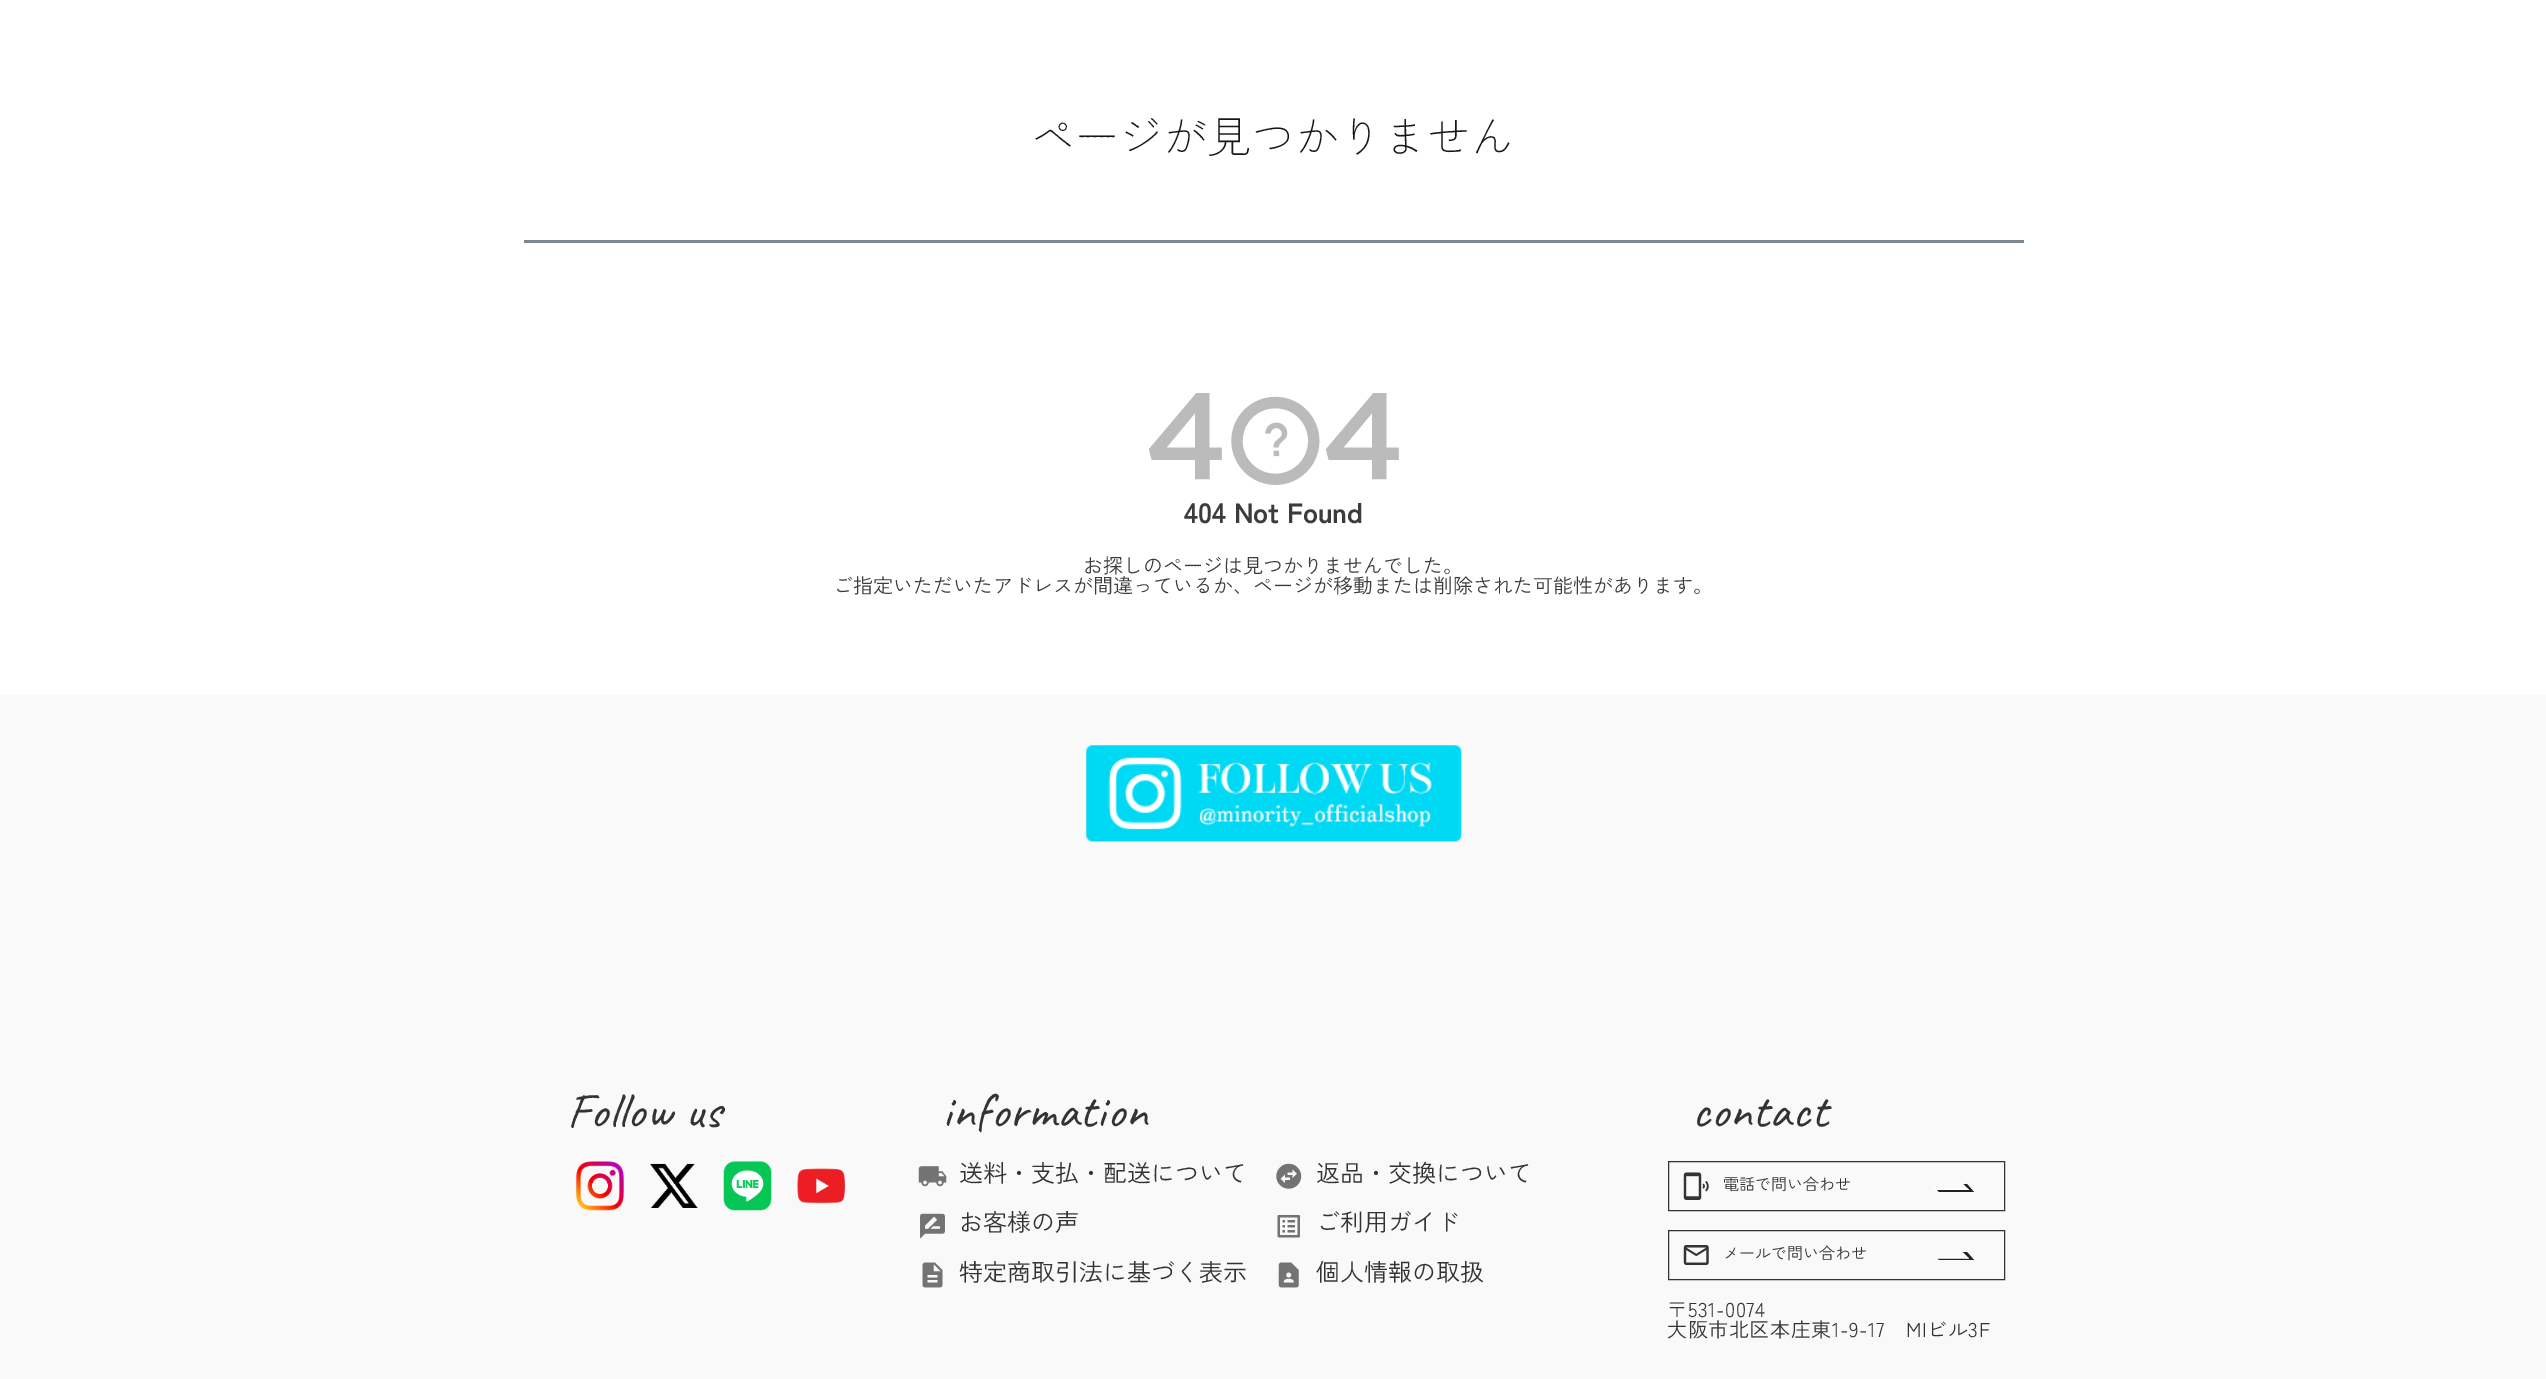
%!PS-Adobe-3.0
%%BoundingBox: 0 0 2546 1379
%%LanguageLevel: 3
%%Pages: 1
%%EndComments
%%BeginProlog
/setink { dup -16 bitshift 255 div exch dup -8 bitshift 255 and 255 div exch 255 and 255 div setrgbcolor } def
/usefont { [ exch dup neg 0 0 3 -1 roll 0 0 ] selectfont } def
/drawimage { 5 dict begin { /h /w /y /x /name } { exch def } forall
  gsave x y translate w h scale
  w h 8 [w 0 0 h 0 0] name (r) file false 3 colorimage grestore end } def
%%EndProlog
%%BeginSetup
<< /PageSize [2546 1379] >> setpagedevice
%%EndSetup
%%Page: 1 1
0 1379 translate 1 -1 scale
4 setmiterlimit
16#FFFFFF setink
0 0 2546 1379 rectfill
16#7C8790 setink
524 240 1500 3 rectfill
/ZenKakuGothicNew-Light 44 usefont
16#171717 setink
1031 153 moveto (ページが見つかりません) show
(img1.raw) 1149 393 250 92 drawimage
/ZenKakuGothicNew-Bold 28 usefont
16#3C3C3C setink
1184 523 moveto (404 Not Found) show
/ZenKakuGothicNew-Regular 20 usefont
1083 573 moveto (お探しのページは見つかりませんでした。) show
833 593 moveto (ご指定いただいたアドレスが間違っているか、ページが移動または削除された可能性があります。) show
16#F9F9F9 setink
0 695 2546 684 rectfill
(img2.raw) 1086 745 376 97 drawimage
/Caveat-Regular 50 usefont
16#333333 setink
567 1127 moveto 0.75 0 (Follow us) ashow
(img3.raw) 576 1161 48 50 drawimage
(img4.raw) 650 1163 48 45 drawimage
(img5.raw) 723 1161 49 50 drawimage
(img6.raw) 797 1168 48 36 drawimage
942 1127 moveto 0.75 0 (information) ashow
(img7.raw) 918 1166 29 21 drawimage
/ZenKakuGothicNew-Regular 24 usefont
959 1182 moveto (送料・支払・配送について) show
(img8.raw) 1276 1163 26 26 drawimage
1316 1182 moveto (返品・交換について) show
(img9.raw) 920 1213 25 26 drawimage
959 1231 moveto (お客様の声) show
(img10.raw) 1277 1215 23 23 drawimage
1316 1231 moveto (ご利用ガイド) show
(img11.raw) 922 1262 21 26 drawimage
959 1281 moveto (特定商取引法に基づく表示) show
(img12.raw) 1278 1262 21 26 drawimage
1316 1281 moveto (個人情報の取扱) show
/Caveat-Regular 50 usefont
1692 1127 moveto 0.75 0 (contact) ashow
1668.5 1161.5 336 49 rectstroke
(img13.raw) 1683 1172 26 28 drawimage
/ZenKakuGothicNew-Regular 16 usefont
1723 1190 moveto (電話で問い合わせ) show
16#222222 setink
1967 1184 moveto 1963 1184 lineto 1969 1190 lineto 1937 1190 lineto 1939 1192 lineto 1974 1192 lineto closepath fill
16#FFFFFF setink
1961 1182 moveto 1969 1190 lineto 1965.5 1190 lineto 1957.5 1182 lineto closepath fill
1967.5 1188 moveto 1969 1190 lineto 1934 1190 lineto 1932 1188 lineto closepath fill
16#333333 setink
1668.5 1230.5 336 49 rectstroke
(img14.raw) 1683 1245 26 20 drawimage
1723 1259 moveto (メールで問い合わせ) show
16#222222 setink
1967 1252 moveto 1962.5 1252 lineto 1969 1258.5 lineto 1937.5 1258.5 lineto 1939 1260 lineto 1974 1260 lineto closepath fill
16#FFFFFF setink
1961 1250.5 moveto 1969 1258.5 lineto 1965.5 1258.5 lineto 1957.5 1250.5 lineto closepath fill
1967.5 1257 moveto 1969 1258.5 lineto 1934 1258.5 lineto 1932 1257 lineto closepath fill
/ZenKakuGothicNew-Regular 20 usefont
16#333333 setink
1667 1317 moveto 0.6 0 (〒531-0074) ashow
1667 1337 moveto 0.6 0 (大阪市北区本庄東1-9-17　MIビル3F) ashow
showpage
%%EOF
